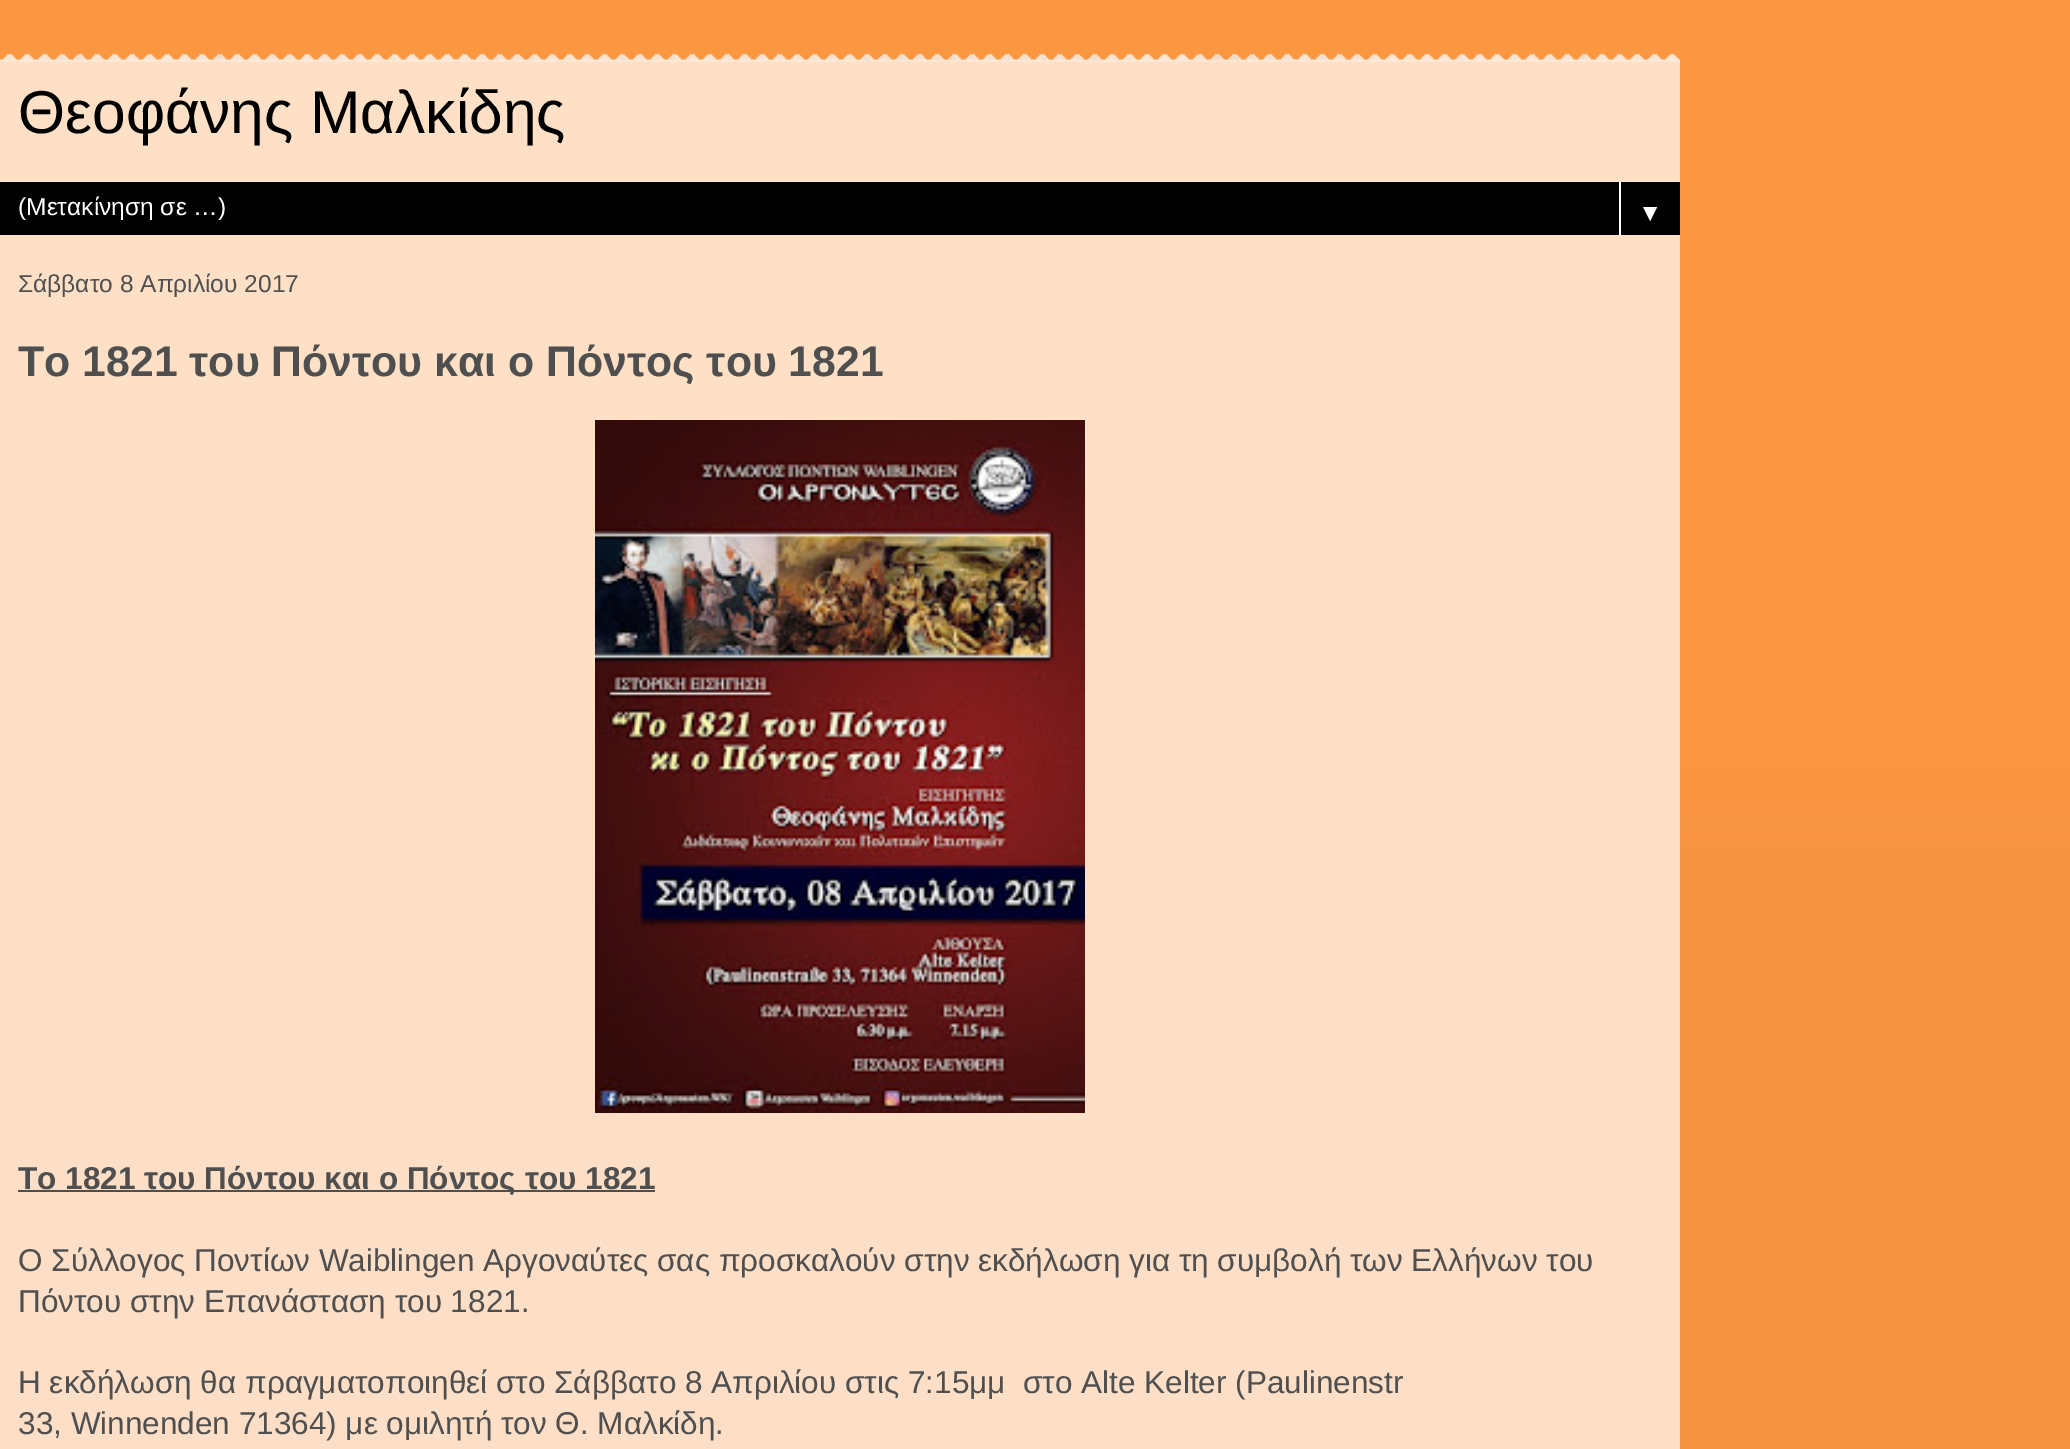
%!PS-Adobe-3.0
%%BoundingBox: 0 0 2070 1449
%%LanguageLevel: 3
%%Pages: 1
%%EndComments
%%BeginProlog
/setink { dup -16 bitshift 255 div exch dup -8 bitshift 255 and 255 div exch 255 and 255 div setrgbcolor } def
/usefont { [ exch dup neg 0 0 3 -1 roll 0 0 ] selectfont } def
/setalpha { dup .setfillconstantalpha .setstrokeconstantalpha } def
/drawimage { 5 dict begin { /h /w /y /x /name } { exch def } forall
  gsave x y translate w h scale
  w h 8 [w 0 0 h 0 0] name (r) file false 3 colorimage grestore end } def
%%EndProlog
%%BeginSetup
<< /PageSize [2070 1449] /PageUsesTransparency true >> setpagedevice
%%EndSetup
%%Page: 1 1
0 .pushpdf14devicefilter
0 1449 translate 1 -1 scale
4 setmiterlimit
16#FFFFFF setink
0 0 2070 1449 rectfill
gsave 0 0 moveto 2070 0 lineto 2070 1449 lineto 0 1449 lineto closepath clip newpath
<< /ShadingType 2 /ColorSpace /DeviceRGB /Coords [0 735 0 875] /Extend [true true] /Function << /FunctionType 2 /Domain [0 1] /C0 [0.988 0.592 0.255] /C1 [0.969 0.58 0.263] /N 1 >> >> shfill grestore
(img1.raw) 0 53 1680 9 drawimage
0.7 setalpha
0 61 1680 1388 rectfill
/LiberationSans-Regular 60.5 usefont
1 setalpha
16#000000 setink
18 133 moveto (Θεοφάνης Μαλκίδης) show
0 182 1680 53 rectfill
/LiberationSans-Regular 24.5 usefont
16#FFFFFF setink
18 215 moveto (\(Μετακίνηση σε …\)) show
1619 182 2 53 rectfill
1638 221 moveto (▼) show
16#4F4F4F setink
18 292 moveto (Σάββατο 8 Απριλίου 2017) show
/LiberationSans-Bold 42.8 usefont
18 376 moveto (To 1821 του Πόντου και ο Πόντος του 1821) show
(img2.raw) 595 420 490 693 drawimage
18 1190 637 2 rectfill
/LiberationSans-Bold 31.5 usefont
18 1189 moveto (To 1821 του Πόντου και ο Πόντος του 1821) show
/LiberationSans-Regular 31.5 usefont
[
    [(Ο Σύλλογος Ποντίων Waiblingen Αργοναύτες σας προσκαλούν στην εκδήλωση για τη συμβολή των Ελλήνων του) 18 1271]
    [(Πόντου στην Επανάσταση του 1821.) 18 1312]
    [(Η εκδήλωση θα πραγματοποιηθεί στο Σάββατο 8 Απριλίου στις 7:15μμ  στο Alte Kelter \(Paulinenstr) 18 1393]
    [(33, Winnenden 71364\) με ομιλητή τον Θ. Μαλκίδη.) 18 1434]
] { aload pop moveto show } forall
.poppdf14devicefilter showpage
%%EOF
